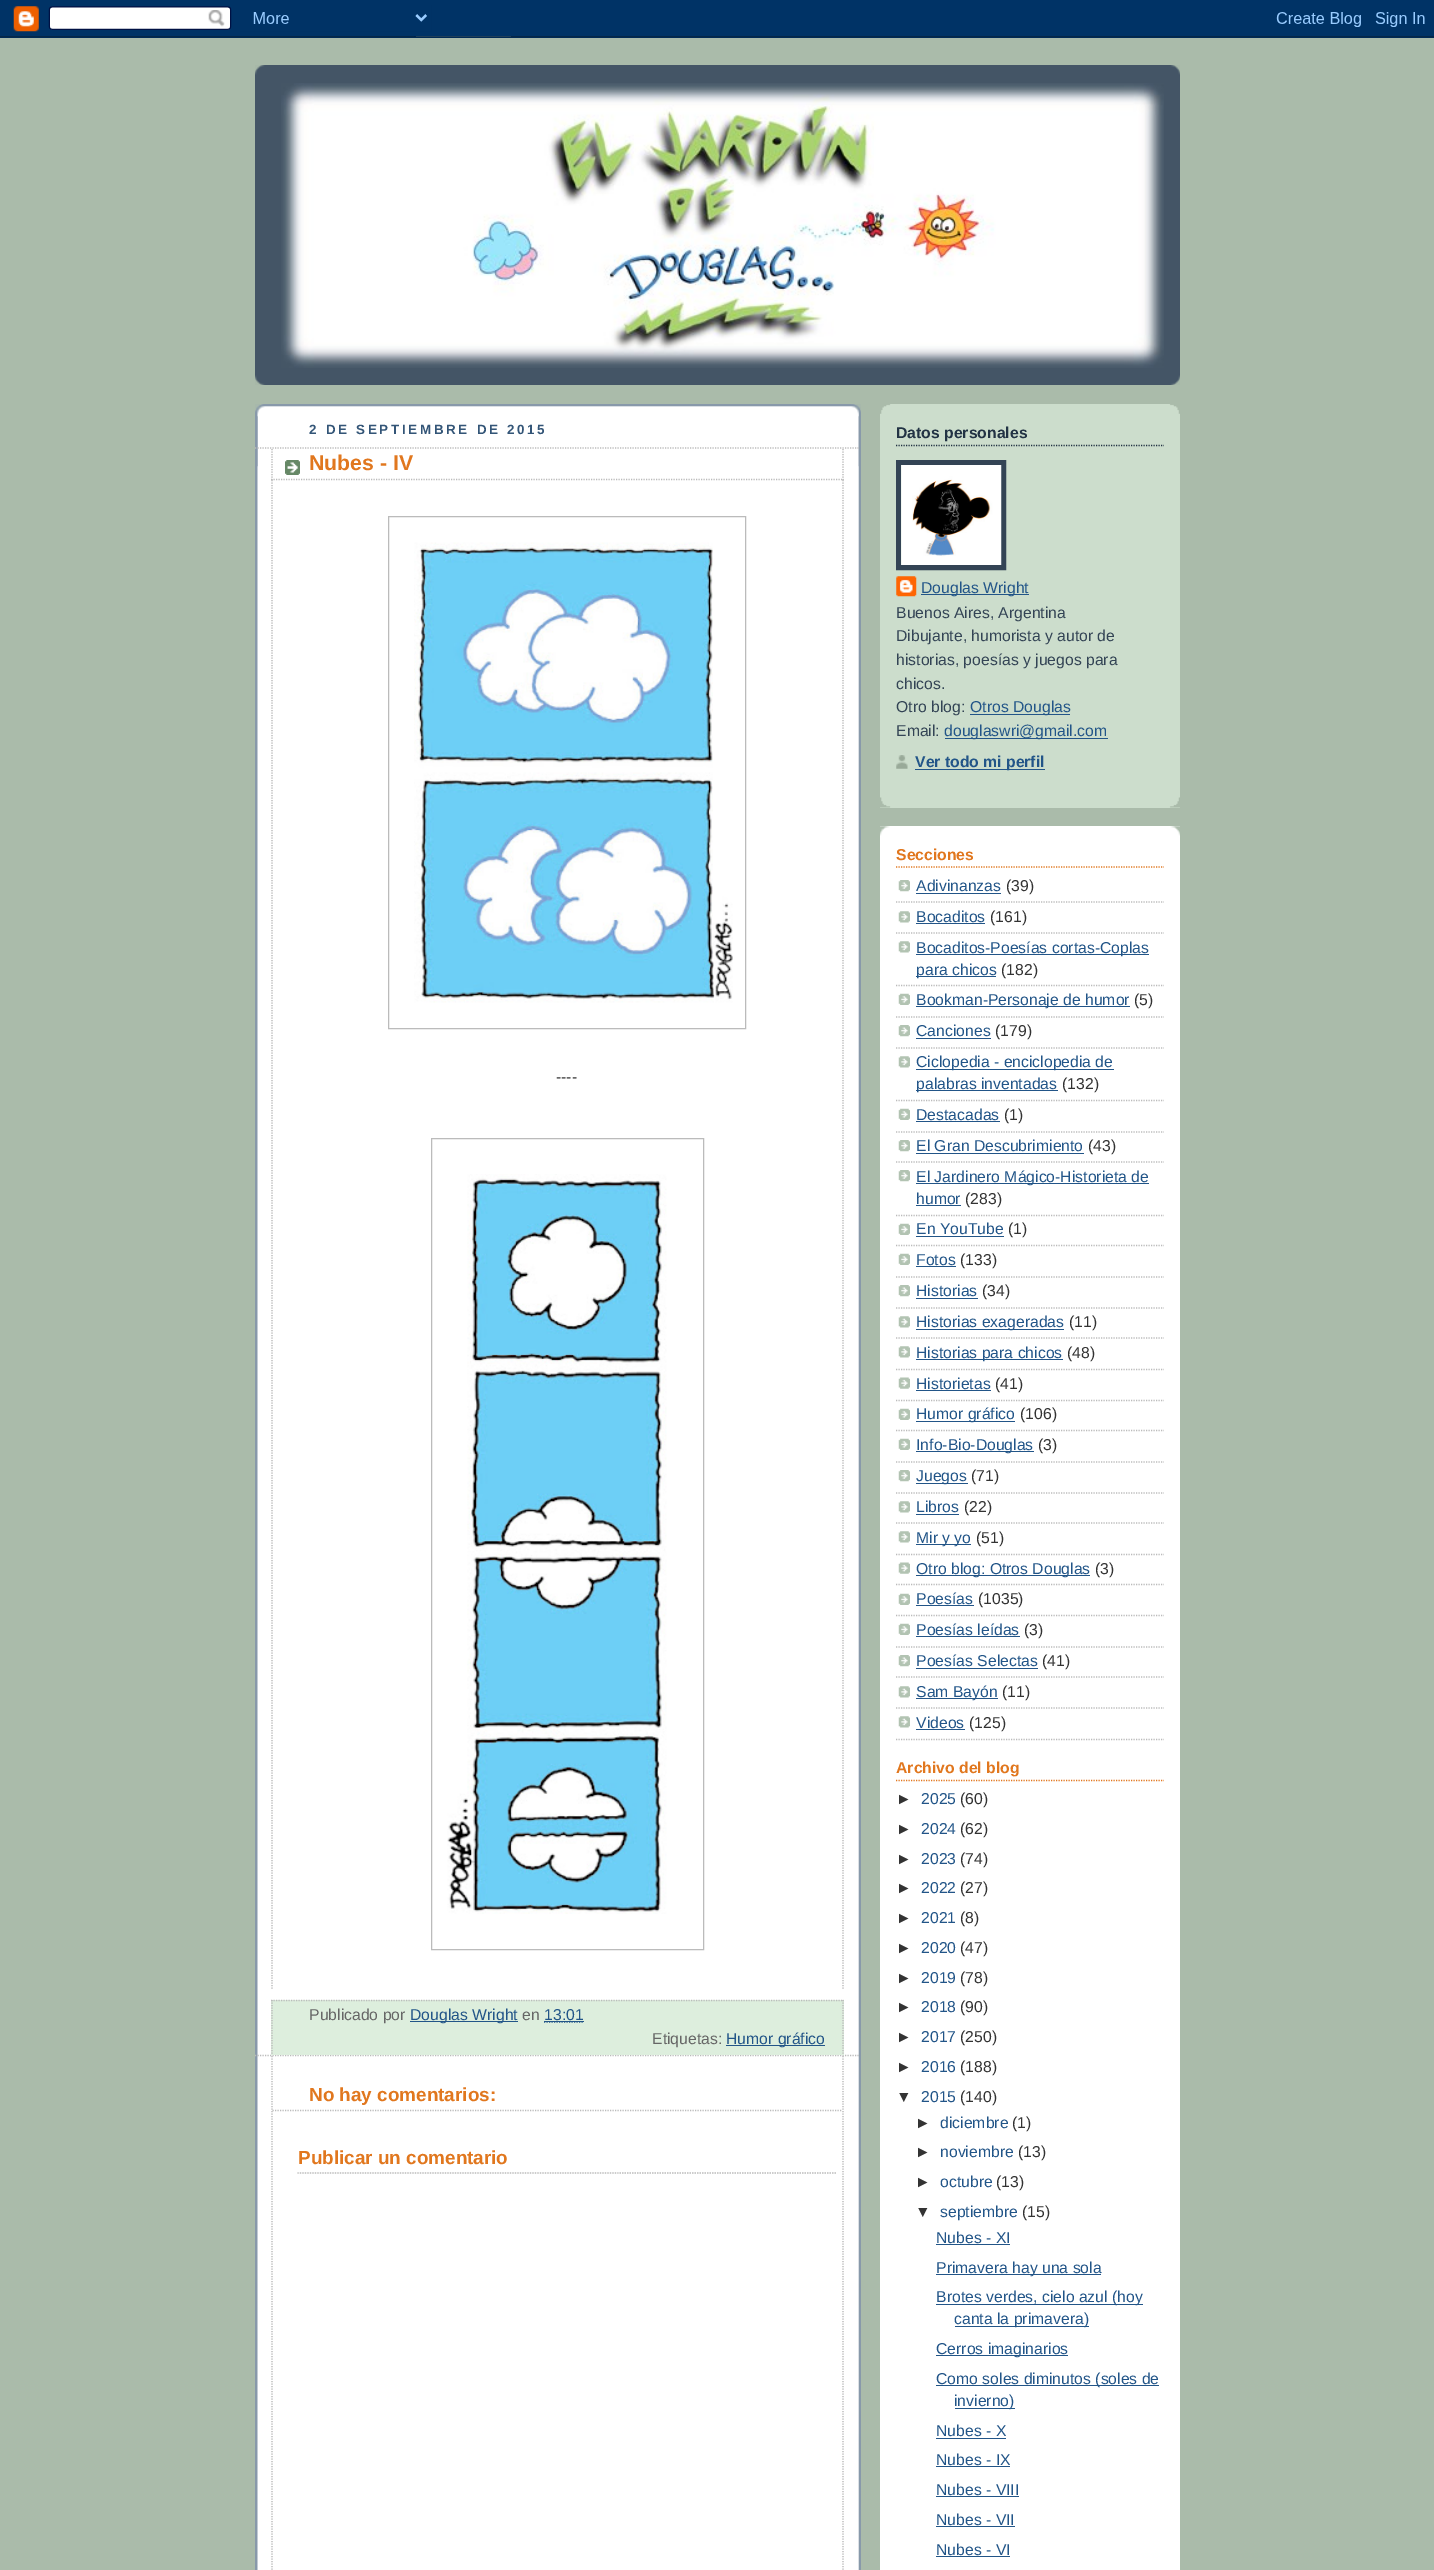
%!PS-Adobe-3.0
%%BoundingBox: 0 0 1434 2570
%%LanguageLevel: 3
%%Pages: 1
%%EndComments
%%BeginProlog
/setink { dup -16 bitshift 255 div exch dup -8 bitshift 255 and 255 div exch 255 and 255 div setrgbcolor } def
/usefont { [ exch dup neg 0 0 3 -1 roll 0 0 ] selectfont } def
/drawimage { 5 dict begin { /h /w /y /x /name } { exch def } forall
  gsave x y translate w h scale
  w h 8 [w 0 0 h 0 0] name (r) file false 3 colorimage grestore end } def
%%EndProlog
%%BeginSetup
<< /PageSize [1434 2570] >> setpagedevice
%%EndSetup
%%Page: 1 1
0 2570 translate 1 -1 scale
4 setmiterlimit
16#AABBAA setink
0 0 1434 2570 rectfill
(img1.raw) 0 0 1434 38 drawimage
16#445566 setink
255 65 925 320 rectfill
(img2.raw) 255 65 925 10 drawimage
(img3.raw) 255 375 925 10 drawimage
(img4.raw) 281 83 883 285 drawimage
16#FFFFFF setink
257 406 602 2164 rectfill
(img5.raw) 255 404 606 63 drawimage
(img6.raw) 255 416 606 2154 drawimage
/LiberationSans-Bold 13.4 usefont
16#335577 setink
309 434 moveto 2.7 0 (2 DE SEPTIEMBRE DE 2015) ashow
16#BBBBBB setink
1.2 setlinewidth
[1.25 1.25] 0 setdash
255 448 moveto 860 448 lineto stroke
255 2055.5 moveto 860 2055.5 lineto stroke
(img7.raw) 285 460 15 15 drawimage
843 449 moveto 843 480 lineto stroke
271 479.5 moveto 844 479.5 lineto stroke
272 449 moveto 272 480 lineto stroke
/LiberationSans-Bold 21.25 usefont
16#E1771E setink
309 470 moveto (Nubes - IV) show
16#BBBBBB setink
843 480 moveto 843 1989 lineto stroke
272 480 moveto 272 1989 lineto stroke
1 setlinewidth
[] 0 setdash
388.5 516.5 357 512 rectstroke
(img8.raw) 414 542 319 461 drawimage
/LiberationSans-Regular 15.75 usefont
16#333333 setink
556 1082 moveto (----) show
16#BBBBBB setink
431.5 1138.5 272 811 rectstroke
(img9.raw) 447 1174 220 740 drawimage
16#DDEEDD setink
271 2000 573 55 rectfill
16#BBBBBB setink
1.2 setlinewidth
[1.25 1.25] 0 setdash
271 2000.5 moveto 844 2000.5 lineto stroke
843 2000 moveto 843 2055 lineto stroke
272 2000 moveto 272 2055 lineto stroke
16#666666 setink
309 2020 moveto (Publicado por) show
16#225588 setink
410 2021 108 1 rectfill
410 2020 moveto (Douglas Wright) show
16#666666 setink
522 2020 moveto (en) show
16#225588 setink
544 2020 moveto (13:01) show
544 2022 moveto 583.5 2022 lineto stroke
544 2021 40 1 rectfill
16#666666 setink
652 2044 moveto (Etiquetas:) show
16#225588 setink
726 2045 99 1 rectfill
726 2044 moveto (Humor gráfico) show
16#BBBBBB setink
843 2056 moveto 843 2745 lineto stroke
272 2056 moveto 272 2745 lineto stroke
272.5 2110.5 moveto 842.5 2110.5 lineto stroke
/LiberationSans-Bold 18.9 usefont
16#E1771E setink
309 2101 moveto (No hay comentarios:) show
16#BBBBBB setink
297.5 2173 moveto 836 2173 lineto stroke
16#E1771E setink
298 2164 moveto (Publicar un comentario) show
16#CCDDCC setink
880 404 300 404 rectfill
(img10.raw) 880 797 300 11 drawimage
(img11.raw) 880 404 300 10 drawimage
16#223344 setink
896 445.5 moveto 1164 445.5 lineto stroke
/LiberationSans-Bold 15.75 usefont
896 438 moveto (Datos personales) show
16#334455 setink
5 setlinewidth
[] 0 setdash
898.5 462.5 105 105 rectstroke
(img12.raw) 901 465 101 100 drawimage
(img13.raw) 896 576 21 21 drawimage
16#225588 setink
921 594 108 1 rectfill
/LiberationSans-Regular 15.75 usefont
921 593 moveto (Douglas Wright) show
16#334455 setink
[
    [(Buenos Aires, Argentina) 896 618]
    [(Dibujante, humorista y autor de) 896 641]
    [(historias, poesías y juegos para) 896 665]
    [(chicos.) 896 689]
    [(Otro blog:) 896 712]
] { aload pop moveto show } forall
16#225588 setink
970 714 100 1 rectfill
970 712 moveto (Otros Douglas) show
16#334455 setink
896 736 moveto (Email:) show
16#225588 setink
945 738 163 1 rectfill
944 736 moveto (douglaswri@gmail.com) show
(img14.raw) 896 755 12 14 drawimage
915 769 130 1 rectfill
/LiberationSans-Bold 15.75 usefont
915 767 moveto (Ver todo mi perfil) show
16#FFFFFF setink
880 826 300 1744 rectfill
(img15.raw) 880 826 300 10 drawimage
16#E1771E setink
1.2 setlinewidth
[1.25 1.25] 0 setdash
896 867 moveto 1164 867 lineto stroke
896 860 moveto (Secciones) show
(img16.raw) 898 880 12 12 drawimage
16#BBBBBB setink
896 902 moveto 1164 902 lineto stroke
/LiberationSans-Regular 15.75 usefont
16#225588 setink
916 891 moveto (Adivinanzas) show
916 893 85 1 rectfill
16#333333 setink
1006 891 moveto (\(39\)) show
(img17.raw) 898 911 12 12 drawimage
16#BBBBBB setink
896 933 moveto 1164 933 lineto stroke
16#225588 setink
916 922 moveto (Bocaditos) show
916 923 69 1 rectfill
16#333333 setink
990 922 moveto (\(161\)) show
(img17.raw) 898 941 12 12 drawimage
16#BBBBBB setink
896 985.5 moveto 1164 985.5 lineto stroke
16#225588 setink
916 954 233 1 rectfill
916 953 moveto (Bocaditos-Poesías cortas-Coplas) show
916 976 80 1 rectfill
916 975 moveto (para chicos) show
16#333333 setink
1001 975 moveto (\(182\)) show
(img18.raw) 898 993 12 12 drawimage
16#BBBBBB setink
896 1017 moveto 1164 1017 lineto stroke
16#225588 setink
916 1006 214 1 rectfill
916 1005 moveto (Bookman-Personaje de humor) show
16#333333 setink
1134 1005 moveto (\(5\)) show
(img19.raw) 898 1025 12 12 drawimage
16#BBBBBB setink
896 1048 moveto 1164 1048 lineto stroke
16#225588 setink
916 1036 moveto (Canciones) show
916 1038 75 1 rectfill
16#333333 setink
995 1036 moveto (\(179\)) show
(img17.raw) 898 1056 12 12 drawimage
16#BBBBBB setink
896 1100.5 moveto 1164 1100.5 lineto stroke
16#225588 setink
916 1069 198 1 rectfill
916 1067 moveto (Ciclopedia - enciclopedia de) show
916 1090 142 1 rectfill
916 1089 moveto (palabras inventadas) show
16#333333 setink
1062 1089 moveto (\(132\)) show
(img18.raw) 898 1108 12 12 drawimage
16#BBBBBB setink
896 1132 moveto 1164 1132 lineto stroke
16#225588 setink
916 1120 moveto (Destacadas) show
916 1121 84 1 rectfill
16#333333 setink
1004 1120 moveto (\(1\)) show
(img16.raw) 898 1140 12 12 drawimage
16#BBBBBB setink
896 1162 moveto 1164 1162 lineto stroke
16#225588 setink
916 1151 moveto (El Gran Descubrimiento) show
916 1153 168 1 rectfill
16#333333 setink
1088 1151 moveto (\(43\)) show
(img20.raw) 898 1170 12 12 drawimage
16#BBBBBB setink
896 1215.5 moveto 1164 1215.5 lineto stroke
16#225588 setink
916 1183 233 1 rectfill
916 1182 moveto (El Jardinero Mágico-Historieta de) show
916 1204 moveto (humor) show
916 1205 45 1 rectfill
16#333333 setink
965 1204 moveto (\(283\)) show
(img18.raw) 898 1223 12 12 drawimage
16#BBBBBB setink
896 1245.5 moveto 1164 1245.5 lineto stroke
16#225588 setink
916 1234 moveto (En YouTube) show
916 1236 88 1 rectfill
16#333333 setink
1008 1234 moveto (\(1\)) show
(img18.raw) 898 1253 12 12 drawimage
16#BBBBBB setink
896 1277 moveto 1164 1277 lineto stroke
16#225588 setink
916 1265 moveto (Fotos) show
916 1266 40 1 rectfill
16#333333 setink
960 1265 moveto (\(133\)) show
(img16.raw) 898 1285 12 12 drawimage
16#BBBBBB setink
896 1308 moveto 1164 1308 lineto stroke
16#225588 setink
916 1296 moveto (Historias) show
916 1298 62 1 rectfill
16#333333 setink
982 1296 moveto (\(34\)) show
(img17.raw) 898 1316 12 12 drawimage
16#BBBBBB setink
896 1338 moveto 1164 1338 lineto stroke
16#225588 setink
916 1329 148 1 rectfill
916 1327 moveto (Historias exageradas) show
16#333333 setink
1069 1327 moveto (\(11\)) show
(img17.raw) 898 1346 12 12 drawimage
16#BBBBBB setink
896 1369.5 moveto 1164 1369.5 lineto stroke
16#225588 setink
916 1359 147 1 rectfill
916 1358 moveto (Historias para chicos) show
16#333333 setink
1067 1358 moveto (\(48\)) show
(img21.raw) 898 1377 12 12 drawimage
16#BBBBBB setink
896 1400.5 moveto 1164 1400.5 lineto stroke
16#225588 setink
916 1389 moveto (Historietas) show
916 1390 75 1 rectfill
16#333333 setink
995 1389 moveto (\(41\)) show
(img18.raw) 898 1408 12 12 drawimage
16#BBBBBB setink
896 1430.5 moveto 1164 1430.5 lineto stroke
16#225588 setink
916 1421 99 1 rectfill
916 1419 moveto (Humor gráfico) show
16#333333 setink
1020 1419 moveto (\(106\)) show
(img18.raw) 898 1438 12 12 drawimage
16#BBBBBB setink
896 1462 moveto 1164 1462 lineto stroke
16#225588 setink
916 1451 118 1 rectfill
916 1450 moveto (Info-Bio-Douglas) show
16#333333 setink
1038 1450 moveto (\(3\)) show
(img16.raw) 898 1470 12 12 drawimage
16#BBBBBB setink
896 1493 moveto 1164 1493 lineto stroke
16#225588 setink
916 1483 52 1 rectfill
916 1481 moveto (Juegos) show
16#333333 setink
971 1481 moveto (\(71\)) show
(img17.raw) 898 1501 12 12 drawimage
16#BBBBBB setink
896 1523 moveto 1164 1523 lineto stroke
16#225588 setink
916 1512 moveto (Libros) show
916 1514 43 1 rectfill
16#333333 setink
964 1512 moveto (\(22\)) show
(img17.raw) 898 1531 12 12 drawimage
16#BBBBBB setink
896 1554.5 moveto 1164 1554.5 lineto stroke
16#225588 setink
916 1544 55 1 rectfill
916 1543 moveto (Mir y yo) show
16#333333 setink
976 1543 moveto (\(51\)) show
(img22.raw) 898 1562 12 12 drawimage
16#BBBBBB setink
896 1584.5 moveto 1164 1584.5 lineto stroke
16#225588 setink
916 1575 174 1 rectfill
916 1574 moveto (Otro blog: Otros Douglas) show
16#333333 setink
1095 1574 moveto (\(3\)) show
(img18.raw) 898 1593 12 12 drawimage
16#BBBBBB setink
896 1615.5 moveto 1164 1615.5 lineto stroke
16#225588 setink
916 1604 moveto (Poesías) show
916 1605 58 1 rectfill
16#333333 setink
978 1604 moveto (\(1035\)) show
(img18.raw) 898 1623 12 12 drawimage
16#BBBBBB setink
896 1647 moveto 1164 1647 lineto stroke
16#225588 setink
916 1635 moveto (Poesías leídas) show
916 1636 104 1 rectfill
16#333333 setink
1024 1635 moveto (\(3\)) show
(img16.raw) 898 1655 12 12 drawimage
16#BBBBBB setink
896 1677 moveto 1164 1677 lineto stroke
16#225588 setink
916 1666 moveto (Poesías Selectas) show
916 1668 122 1 rectfill
16#333333 setink
1042 1666 moveto (\(41\)) show
(img17.raw) 898 1686 12 12 drawimage
16#BBBBBB setink
896 1708 moveto 1164 1708 lineto stroke
16#225588 setink
916 1698 82 1 rectfill
916 1697 moveto (Sam Bayón) show
16#333333 setink
1002 1697 moveto (\(11\)) show
(img17.raw) 898 1716 12 12 drawimage
16#BBBBBB setink
896 1739.5 moveto 1164 1739.5 lineto stroke
16#225588 setink
916 1728 moveto (Videos) show
916 1729 49 1 rectfill
16#333333 setink
969 1728 moveto (\(125\)) show
16#E1771E setink
896 1780.5 moveto 1164 1780.5 lineto stroke
/LiberationSans-Bold 15.75 usefont
896 1773 moveto (Archivo del blog) show
/LiberationSans-Regular 15.75 usefont
16#333333 setink
896 1804 moveto (►) show
16#225588 setink
921 1804 moveto (2025) show
16#333333 setink
960 1804 moveto (\(60\)) show
896 1834 moveto (►) show
16#225588 setink
921 1834 moveto (2024) show
16#333333 setink
960 1834 moveto (\(62\)) show
896 1864 moveto (►) show
16#225588 setink
921 1864 moveto (2023) show
16#333333 setink
960 1864 moveto (\(74\)) show
896 1893 moveto (►) show
16#225588 setink
921 1893 moveto (2022) show
16#333333 setink
960 1893 moveto (\(27\)) show
896 1923 moveto (►) show
16#225588 setink
921 1923 moveto (2021) show
16#333333 setink
960 1923 moveto (\(8\)) show
896 1953 moveto (►) show
16#225588 setink
921 1953 moveto (2020) show
16#333333 setink
960 1953 moveto (\(47\)) show
896 1983 moveto (►) show
16#225588 setink
921 1983 moveto (2019) show
16#333333 setink
960 1983 moveto (\(78\)) show
896 2012 moveto (►) show
16#225588 setink
921 2012 moveto (2018) show
16#333333 setink
960 2012 moveto (\(90\)) show
896 2042 moveto (►) show
16#225588 setink
921 2042 moveto (2017) show
16#333333 setink
960 2042 moveto (\(250\)) show
896 2072 moveto (►) show
16#225588 setink
921 2072 moveto (2016) show
16#333333 setink
960 2072 moveto (\(188\)) show
896 2102 moveto (▼) show
16#225588 setink
921 2102 moveto (2015) show
16#333333 setink
960 2102 moveto (\(140\)) show
915 2128 moveto (►) show
16#225588 setink
940 2128 moveto (diciembre) show
16#333333 setink
1012 2128 moveto (\(1\)) show
915 2157 moveto (►) show
16#225588 setink
940 2157 moveto (noviembre) show
16#333333 setink
1018 2157 moveto (\(13\)) show
915 2187 moveto (►) show
16#225588 setink
940 2187 moveto (octubre) show
16#333333 setink
996 2187 moveto (\(13\)) show
915 2217 moveto (▼) show
16#225588 setink
940 2217 moveto (septiembre) show
16#333333 setink
1022 2217 moveto (\(15\)) show
16#225588 setink
936 2243 moveto (Nubes - XI) show
936 2244 74 1 rectfill
936 2274 165 1 rectfill
936 2273 moveto (Primavera hay una sola) show
936 2304 207 1 rectfill
936 2302 moveto (Brotes verdes, cielo azul \(hoy) show
955 2326 134 1 rectfill
954 2324 moveto (canta la primavera\)) show
936 2355 132 1 rectfill
936 2354 moveto (Cerros imaginarios) show
936 2385 223 1 rectfill
936 2384 moveto (Como soles diminutos \(soles de) show
955 2408 60 1 rectfill
954 2406 moveto (invierno\)) show
936 2436 moveto (Nubes - X) show
936 2438 70 1 rectfill
936 2465 moveto (Nubes - IX) show
936 2466 74 1 rectfill
936 2495 moveto (Nubes - VIII) show
936 2496 83 1 rectfill
936 2525 moveto (Nubes - VII) show
936 2526 79 1 rectfill
936 2555 moveto (Nubes - VI) show
936 2556 74 1 rectfill
showpage
%%EOF
